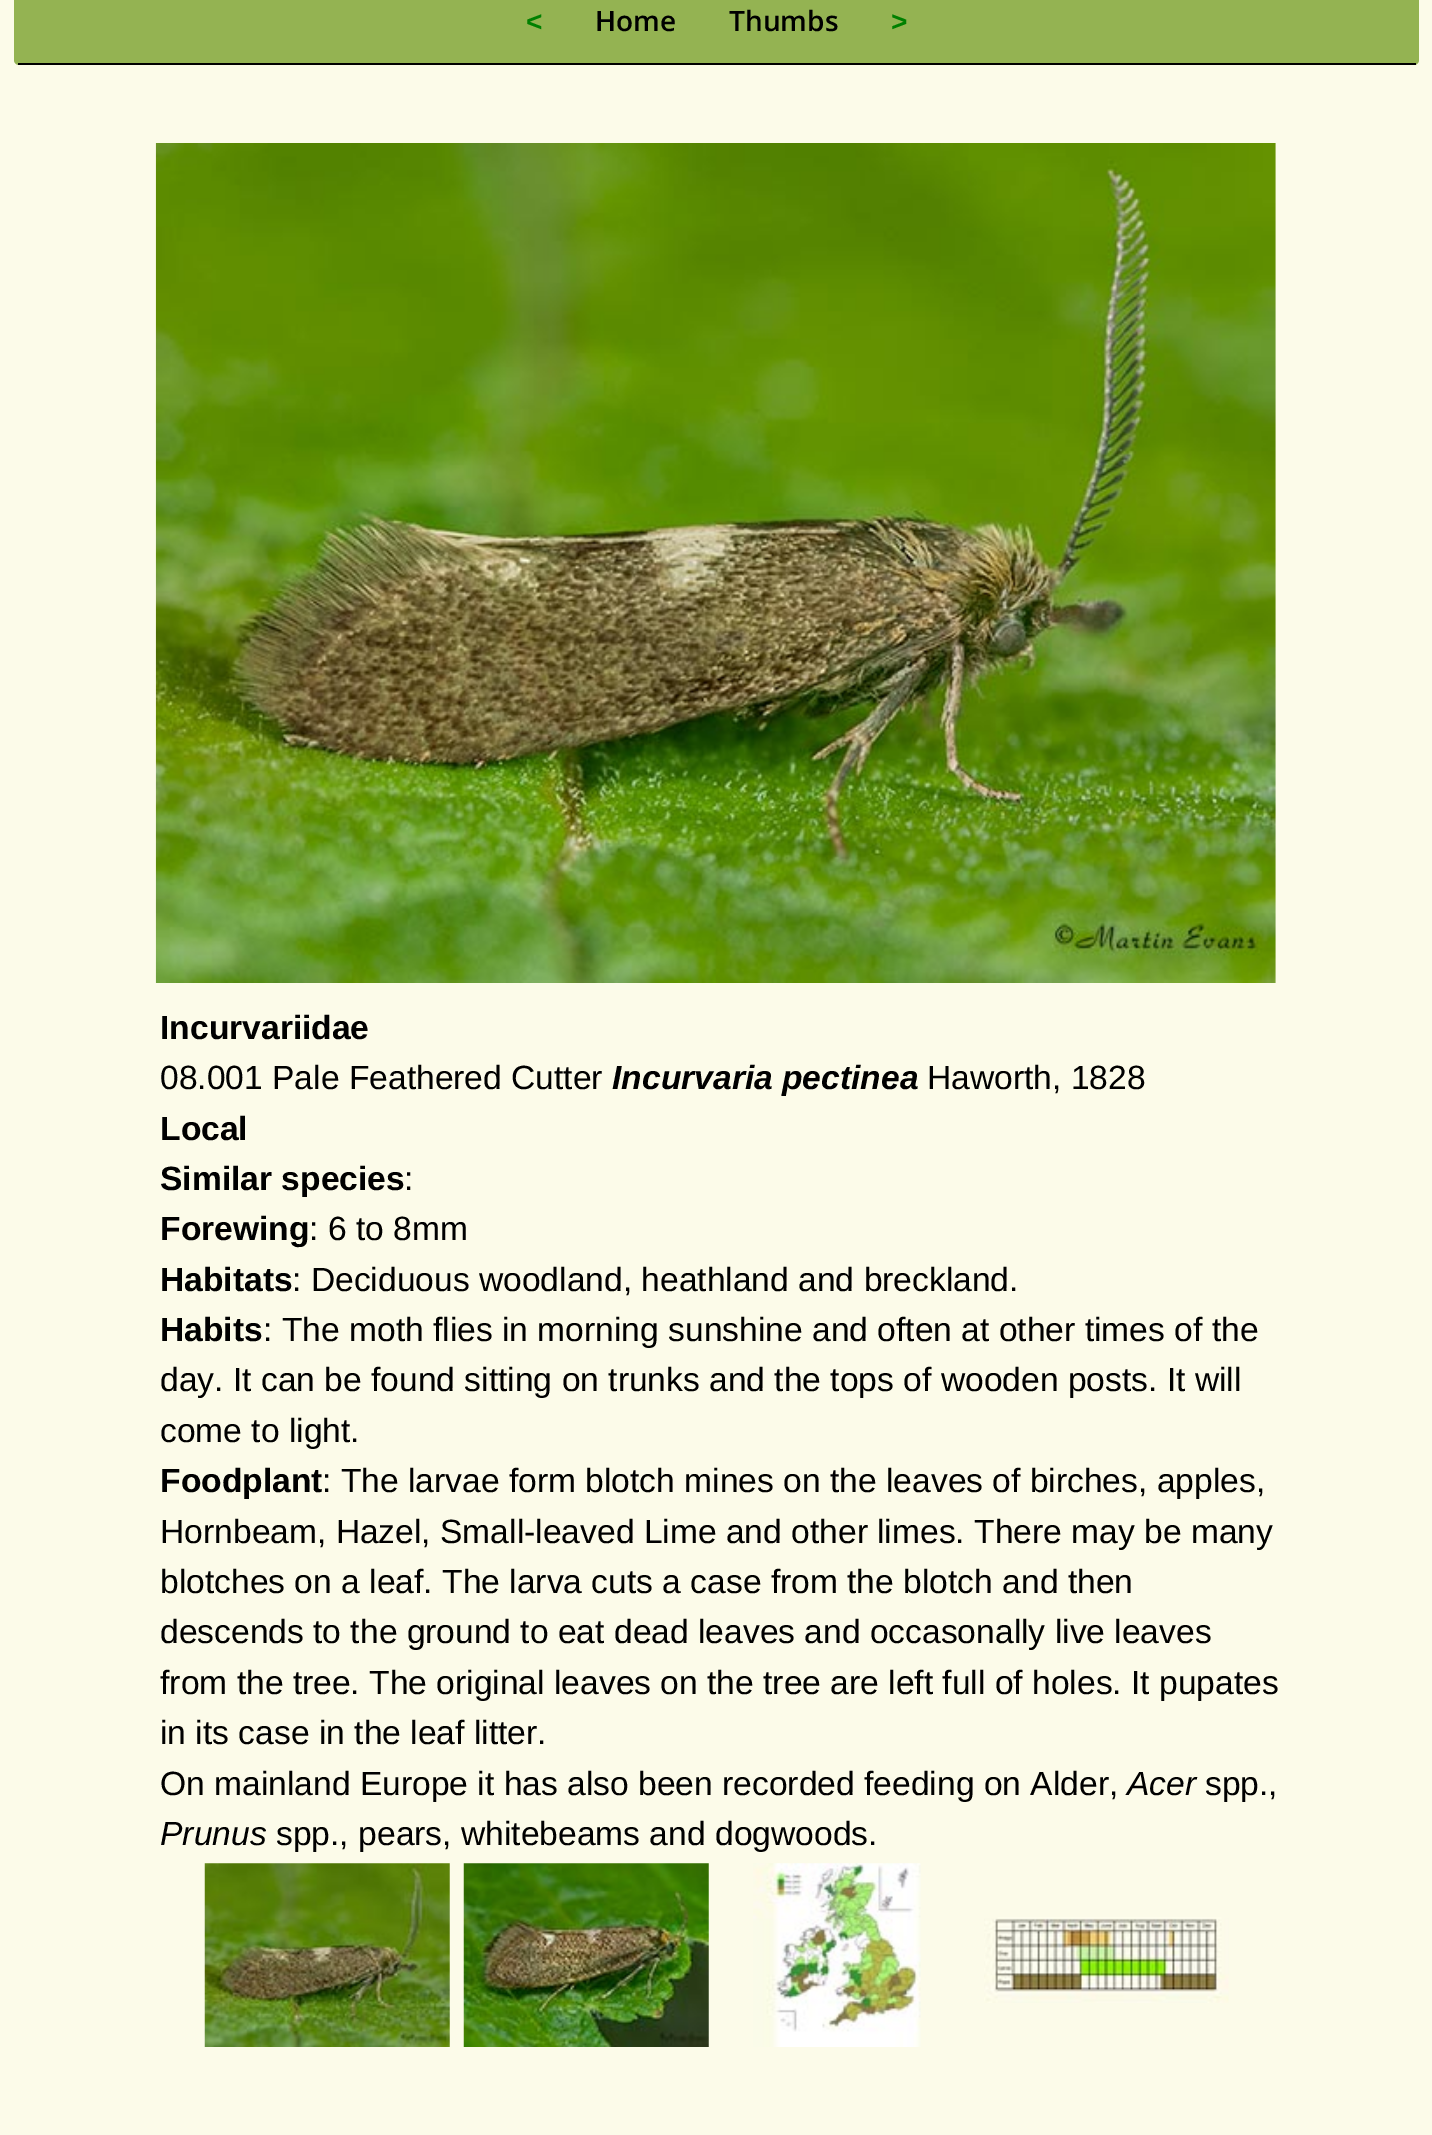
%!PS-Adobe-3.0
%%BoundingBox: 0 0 1432 2135
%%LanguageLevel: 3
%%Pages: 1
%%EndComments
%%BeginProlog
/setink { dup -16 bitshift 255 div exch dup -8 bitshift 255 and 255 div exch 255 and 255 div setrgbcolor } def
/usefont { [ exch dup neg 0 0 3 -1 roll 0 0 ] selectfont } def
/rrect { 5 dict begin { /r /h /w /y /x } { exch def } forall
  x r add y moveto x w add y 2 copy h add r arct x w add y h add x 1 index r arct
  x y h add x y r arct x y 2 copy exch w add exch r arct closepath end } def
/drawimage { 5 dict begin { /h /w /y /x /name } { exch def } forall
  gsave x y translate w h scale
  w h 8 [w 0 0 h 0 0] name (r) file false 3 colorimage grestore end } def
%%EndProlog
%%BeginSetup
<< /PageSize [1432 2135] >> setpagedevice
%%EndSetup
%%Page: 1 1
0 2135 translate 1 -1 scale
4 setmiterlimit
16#FCFBE9 setink
0 0 1432 2135 rectfill
16#94B352 setink
14 -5 1405 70 5 rrect fill
16#000000 setink
18 63 1398 2 rectfill
/LiberationSans-Bold 28 usefont
16#008000 setink
526 31 moveto (<) show
/OpenSans-SemiBold 28 usefont
16#000000 setink
595 31 moveto (Home) show
729 31 moveto (Thumbs) show
/LiberationSans-Bold 28 usefont
16#008000 setink
891 31 moveto (>) show
(img1.raw) 155 143 1121 840 drawimage
/LiberationSans-Bold 33.6 usefont
16#000000 setink
160 1039 moveto (Incurvariidae) show
/LiberationSans-Regular 33.6 usefont
160 1089 moveto (08.001 Pale Feathered Cutter) show
/LiberationSans-BoldItalic 33.6 usefont
612 1089 moveto (Incurvaria pectinea) show
/LiberationSans-Regular 33.6 usefont
927 1089 moveto (Haworth, 1828) show
/LiberationSans-Bold 33.6 usefont
160 1140 moveto (Local) show
160 1190 moveto (Similar species) show
/LiberationSans-Regular 33.6 usefont
404 1190 moveto (:) show
/LiberationSans-Bold 33.6 usefont
160 1240 moveto (Forewing) show
/LiberationSans-Regular 33.6 usefont
309 1240 moveto (: 6 to 8mm) show
/LiberationSans-Bold 33.6 usefont
160 1291 moveto (Habitats) show
/LiberationSans-Regular 33.6 usefont
292 1291 moveto (: Deciduous woodland, heathland and breckland.) show
/LiberationSans-Bold 33.6 usefont
160 1341 moveto (Habits) show
/LiberationSans-Regular 33.6 usefont
[
    [(: The moth flies in morning sunshine and often at other times of the) 263 1341]
    [(day. It can be found sitting on trunks and the tops of wooden posts. It will) 160 1391]
    [(come to light.) 160 1442]
] { aload pop moveto show } forall
/LiberationSans-Bold 33.6 usefont
160 1492 moveto (Foodplant) show
/LiberationSans-Regular 33.6 usefont
[
    [(: The larvae form blotch mines on the leaves of birches, apples,) 322 1492]
    [(Hornbeam, Hazel, Small-leaved Lime and other limes. There may be many) 160 1543]
    [(blotches on a leaf. The larva cuts a case from the blotch and then) 160 1593]
    [(descends to the ground to eat dead leaves and occasonally live leaves) 160 1643]
    [(from the tree. The original leaves on the tree are left full of holes. It pupates) 160 1694]
    [(in its case in the leaf litter.) 160 1744]
    [(On mainland Europe it has also been recorded feeding on Alder,) 160 1795]
] { aload pop moveto show } forall
/LiberationSans-Italic 33.6 usefont
1127 1795 moveto (Acer) show
/LiberationSans-Regular 33.6 usefont
1205 1795 moveto (spp.,) show
/LiberationSans-Italic 33.6 usefont
160 1845 moveto (Prunus) show
/LiberationSans-Regular 33.6 usefont
276 1845 moveto (spp., pears, whitebeams and dogwoods.) show
(img2.raw) 204 1863 246 184 drawimage
(img3.raw) 463 1863 246 184 drawimage
(img4.raw) 753 1863 168 184 drawimage
(img5.raw) 984 1917 245 86 drawimage
showpage
%%EOF
